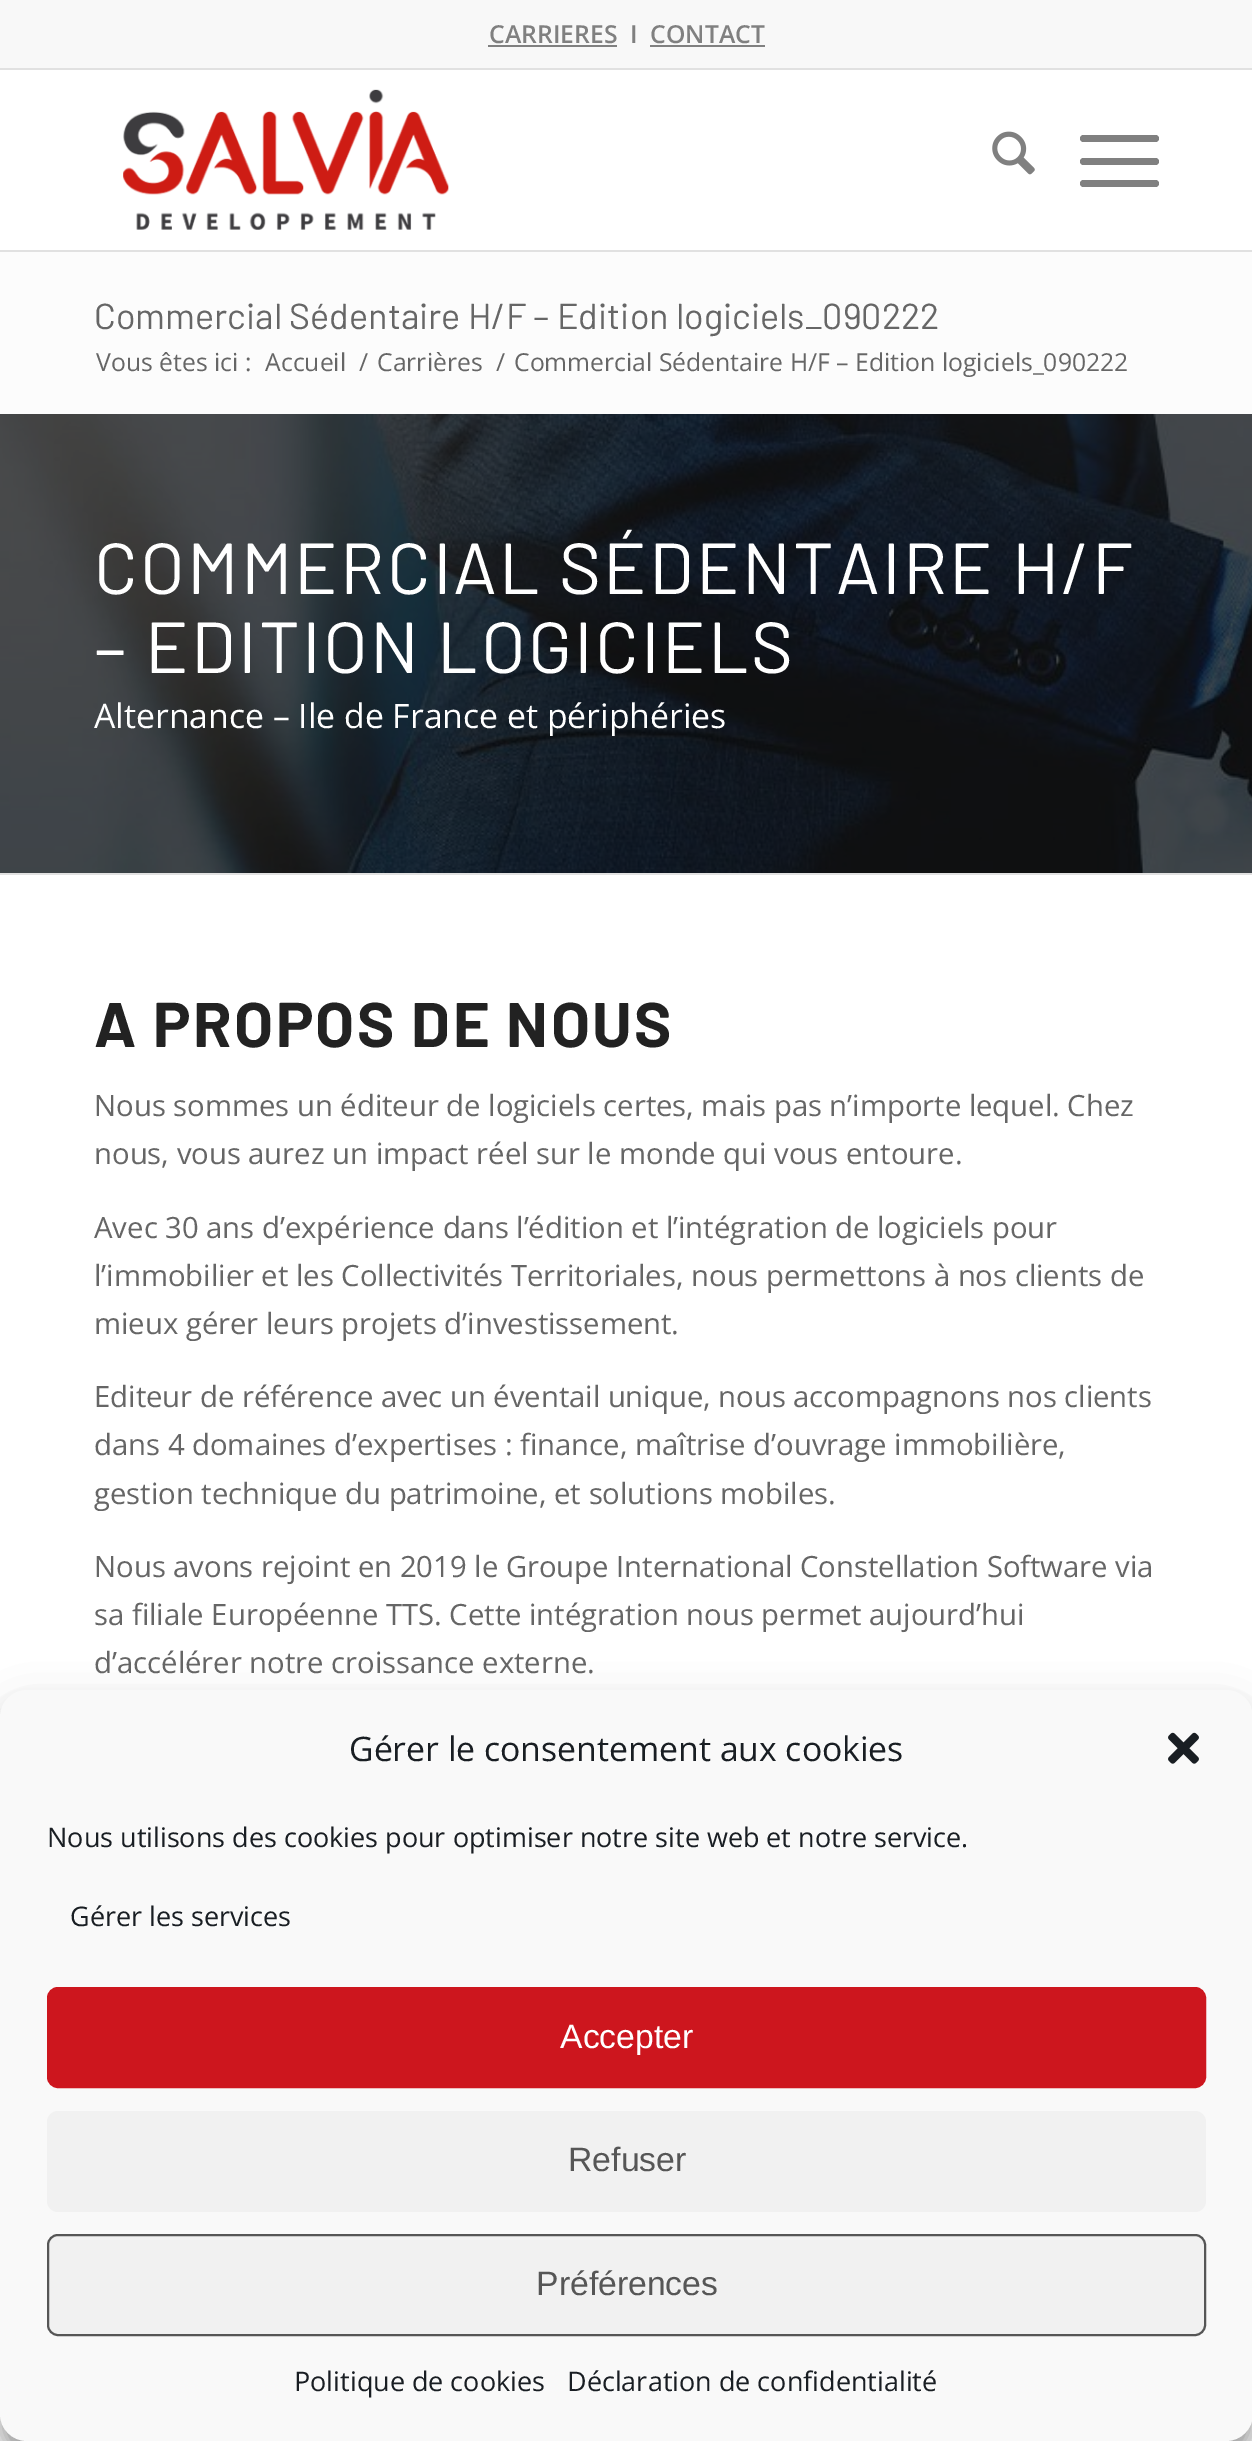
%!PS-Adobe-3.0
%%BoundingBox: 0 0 1252 2441
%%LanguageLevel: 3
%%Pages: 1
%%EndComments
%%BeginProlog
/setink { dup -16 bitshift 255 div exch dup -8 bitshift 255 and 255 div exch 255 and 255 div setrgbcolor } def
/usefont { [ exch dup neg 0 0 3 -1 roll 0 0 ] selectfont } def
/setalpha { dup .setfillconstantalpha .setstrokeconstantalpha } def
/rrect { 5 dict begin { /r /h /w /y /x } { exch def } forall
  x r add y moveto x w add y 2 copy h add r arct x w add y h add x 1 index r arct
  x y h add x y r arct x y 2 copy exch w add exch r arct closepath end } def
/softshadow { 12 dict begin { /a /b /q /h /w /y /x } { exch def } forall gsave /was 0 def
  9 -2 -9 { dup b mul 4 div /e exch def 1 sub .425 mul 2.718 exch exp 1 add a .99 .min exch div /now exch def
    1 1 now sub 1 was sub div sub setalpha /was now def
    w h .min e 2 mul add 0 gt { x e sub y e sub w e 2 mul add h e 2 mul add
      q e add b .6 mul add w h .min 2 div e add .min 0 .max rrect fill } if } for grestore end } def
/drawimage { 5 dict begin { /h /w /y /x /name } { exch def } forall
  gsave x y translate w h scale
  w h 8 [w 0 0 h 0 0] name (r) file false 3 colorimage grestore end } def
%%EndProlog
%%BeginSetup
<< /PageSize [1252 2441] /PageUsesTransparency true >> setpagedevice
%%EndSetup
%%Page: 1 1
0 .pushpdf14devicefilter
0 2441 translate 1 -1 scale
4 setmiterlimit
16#FFFFFF setink
0 0 1252 2441 rectfill
16#F8F8F8 setink
0 0 1252 68 rectfill
16#E1E1E1 setink
0 68 1252 2 rectfill
/OpenSans-SemiBold 24.75 usefont
16#808080 setink
489 43 moveto (CARRIERES) show
488 45 129 2 rectfill
630 43 moveto (I) show
650 43 moveto (CONTACT) show
650 45 115 2 rectfill
16#E1E1E1 setink
0 250 1252 2 rectfill
(img1.raw) 123 89 326 141 drawimage
(img2.raw) 992 131 43 44 drawimage
16#808080 setink
1080 158 79 7 3.5 rrect fill
1080 135 79 7 3.5 rrect fill
1080 180 79 7 3.5 rrect fill
16#FCFCFC setink
0 252 1252 162 rectfill
/Barlow-Regular 36 usefont
16#666666 setink
94 329 moveto (Commercial Sédentaire H/F – Edition logiciels_090222) show
/OpenSans-Regular 24.75 usefont
[
    [(Vous êtes ici :) 96 371]
    [(Accueil) 265 371]
    [(/) 359 371]
    [(Carrières) 377 371]
    [(/) 496 371]
    [(Commercial Sédentaire H/F – Edition logiciels_090222) 514 371]
] { aload pop moveto show } forall
(img3.raw) 0 414 1252 459 drawimage
/Barlow-Regular 72 usefont
16#FFFFFF setink
94 594 moveto 2.25 0 (COMMERCIAL SÉDENTAIRE H/F) ashow
94 673 moveto 2.25 0 (– EDITION LOGICIELS) ashow
/OpenSans-Regular 33.75 usefont
94 728 moveto (Alternance – Ile de France et périphéries) show
16#E1E1E1 setink
0 873 1252 2 rectfill
/Barlow-Bold 63 usefont
16#222222 setink
94 1047 moveto 2.25 0 (A PROPOS DE NOUS) ashow
/OpenSans-Regular 29.25 usefont
16#666666 setink
[
    [(Nous sommes un éditeur de logiciels certes, mais pas n’importe lequel. Chez) 94 1116]
    [(nous, vous aurez un impact réel sur le monde qui vous entoure.) 94 1164]
    [(Avec 30 ans d’expérience dans l’édition et l’intégration de logiciels pour) 94 1238]
    [(l’immobilier et les Collectivités Territoriales, nous permettons à nos clients de) 94 1286]
    [(mieux gérer leurs projets d’investissement.) 94 1334]
    [(Editeur de référence avec un éventail unique, nous accompagnons nos clients) 94 1407]
    [(dans 4 domaines d’expertises : finance, maîtrise d’ouvrage immobilière,) 94 1455]
    [(gestion technique du patrimoine, et solutions mobiles.) 94 1504]
    [(Nous avons rejoint en 2019 le Groupe International Constellation Software via) 94 1577]
    [(sa filiale Européenne TTS. Cette intégration nous permet aujourd’hui) 94 1625]
    [(d’accélérer notre croissance externe.) 94 1673]
] { aload pop moveto show } forall
16#000000 setink
0 1703 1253 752 27 7 0.23 softshadow
0 1712 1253 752 27 22.5 0.19 softshadow
16#F9F9F9 setink
1 1691 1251 749 26 rrect gsave fill grestore
2 setlinewidth
stroke
/OpenSans-Regular 33.75 usefont
16#191E23 setink
349 1761 moveto (Gérer le consentement aux cookies) show
(img4.raw) 1168 1732 31 32 drawimage
/OpenSans-Regular 27 usefont
47 1847 moveto (Nous utilisons des cookies pour optimiser notre site web et notre service.) show
70 1926 moveto (Gérer les services) show
16#CD161E setink
48 1988 1157 99 10 rrect gsave fill grestore
stroke
/LiberationSans-Regular 33.75 usefont
16#FFFFFF setink
560 2048 moveto (Accepter) show
16#F1F1F1 setink
47 2111 1159 101 11 rrect fill
16#565656 setink
568 2171 moveto (Refuser) show
16#F1F1F1 setink
48 2235 1157 100 10 rrect gsave fill grestore
16#565656 setink
stroke
536 2295 moveto (Préférences) show
/OpenSans-Regular 27 usefont
16#191E23 setink
294 2391 moveto (Politique de cookies) show
567 2391 moveto (Déclaration de confidentialité) show
.poppdf14devicefilter showpage
%%EOF
